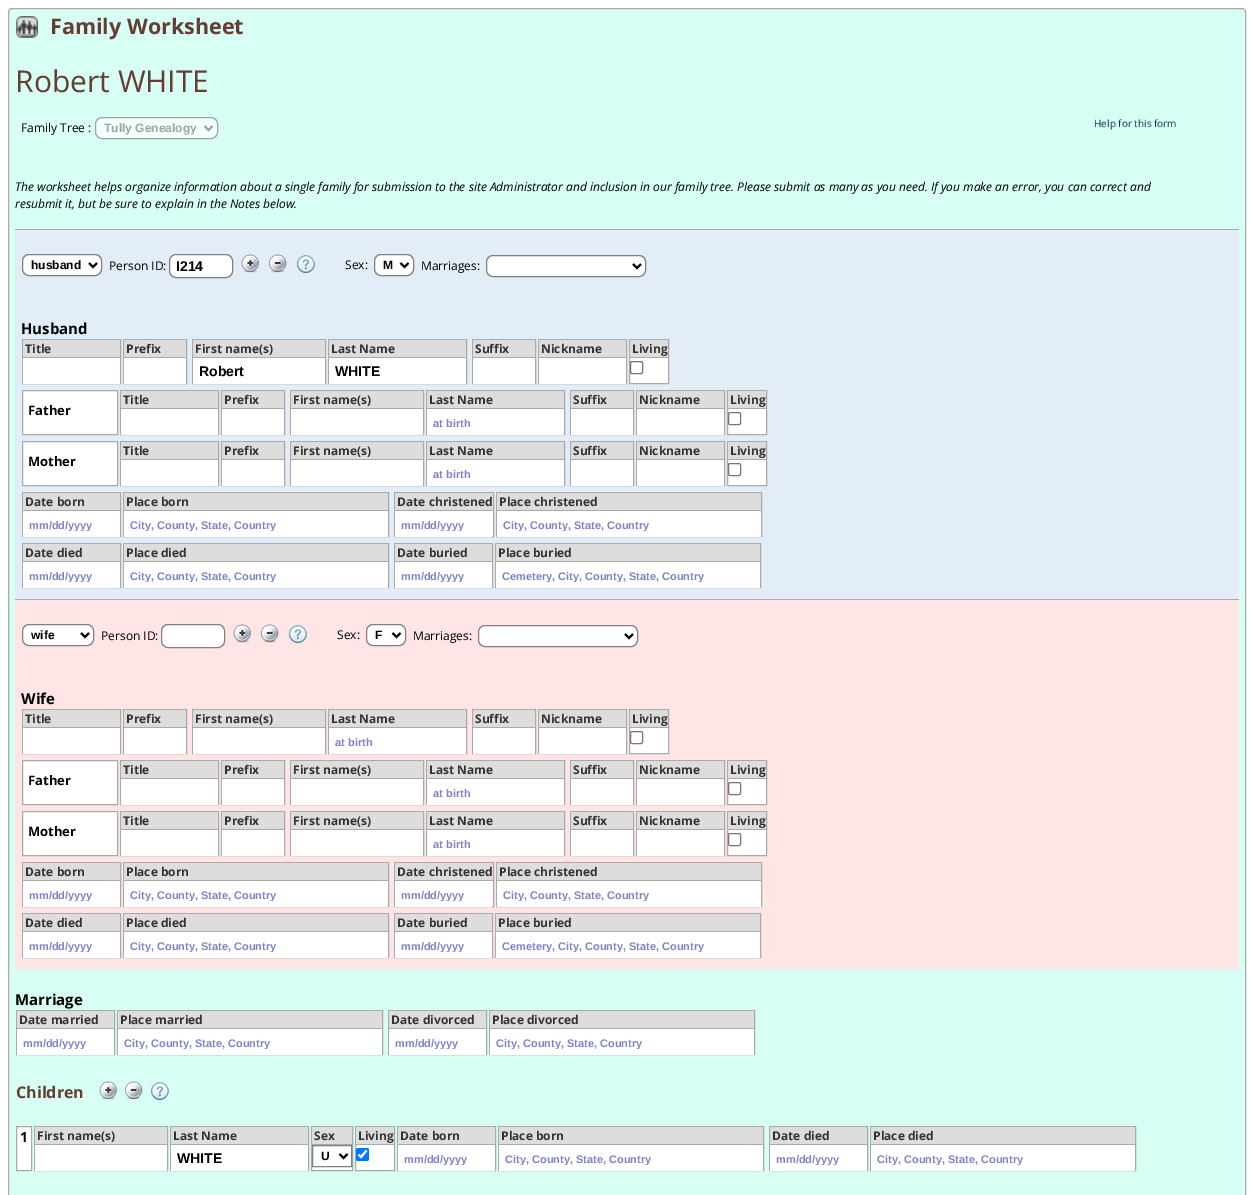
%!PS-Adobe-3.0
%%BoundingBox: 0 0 1254 1195
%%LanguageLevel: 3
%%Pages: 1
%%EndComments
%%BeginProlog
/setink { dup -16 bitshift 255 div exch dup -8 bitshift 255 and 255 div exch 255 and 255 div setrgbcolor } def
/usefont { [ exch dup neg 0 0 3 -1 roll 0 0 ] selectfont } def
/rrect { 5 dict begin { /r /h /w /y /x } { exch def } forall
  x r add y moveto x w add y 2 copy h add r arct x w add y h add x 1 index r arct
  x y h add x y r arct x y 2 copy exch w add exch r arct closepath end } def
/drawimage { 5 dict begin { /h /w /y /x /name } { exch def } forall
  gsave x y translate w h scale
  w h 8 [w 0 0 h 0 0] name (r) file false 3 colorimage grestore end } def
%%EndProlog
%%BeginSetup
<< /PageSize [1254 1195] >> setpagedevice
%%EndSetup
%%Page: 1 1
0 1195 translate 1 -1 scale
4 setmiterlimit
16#FFFFFF setink
0 0 1254 1195 rectfill
16#D8FFF4 setink
8.5 8.5 1237 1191 3.5 rrect gsave fill grestore
16#AAAAAA setink
stroke
(img1.raw) 16 16 22 22 drawimage
/OpenSans-Bold 21.5 usefont
16#663C36 setink
50 34 moveto (Family Worksheet) show
/OpenSans-Regular 30 usefont
15 92 moveto (Robert WHITE) show
/OpenSans-Regular 12 usefont
16#000000 setink
21 132 moveto (Family Tree :) show
16#F3FFFC setink
95.5 117.5 122 21 6.5 rrect gsave fill grestore
16#9AA6A3 setink
stroke
2 setlinewidth
204.5 126 moveto 208.5 130 lineto 212.5 126 lineto stroke
/LiberationSans-Bold 12 usefont
104 132 moveto (Tully Genealogy) show
/OpenSans-Regular 10 usefont
16#063E53 setink
1094 127 moveto (Help for this form) show
/OpenSans-Italic 12 usefont
16#000000 setink
15 191 moveto (The worksheet helps organize information about a single family for submission to the site Administrator and inclusion in our family tree. Please submit as many as you need. If you make an error, you can correct and) show
15 208 moveto (resubmit it, but be sure to explain in the Notes below.) show
16#E3EDF7 setink
15 230 1224 369 rectfill
16#AAAAAA setink
15 229 1224 1 rectfill
16#FFFFFF setink
22.5 254.5 79 21 6.5 rrect gsave fill grestore
16#808080 setink
1 setlinewidth
stroke
16#000000 setink
2 setlinewidth
89 263 moveto 93 267 lineto 97 263 lineto stroke
/LiberationSans-Bold 12 usefont
31 269 moveto (husband) show
/OpenSans-Regular 12 usefont
109 270 moveto (Person ID:) show
16#FFFFFF setink
169.5 254.5 63 23 6.5 rrect gsave fill grestore
16#808080 setink
1 setlinewidth
stroke
/LiberationSans-Bold 14 usefont
16#000000 setink
176 271 moveto (I214) show
(img2.raw) 241 254 18 19 drawimage
(img3.raw) 268 254 19 19 drawimage
(img4.raw) 297 255 18 18 drawimage
/OpenSans-Regular 12 usefont
345 269 moveto (Sex:) show
16#FFFFFF setink
374.5 254.5 39 21 6.5 rrect gsave fill grestore
16#808080 setink
stroke
16#000000 setink
2 setlinewidth
400.5 263 moveto 404.5 267 lineto 408.5 263 lineto stroke
/LiberationSans-Bold 12 usefont
383 269 moveto (M) show
/OpenSans-Regular 12 usefont
421 270 moveto (Marriages:) show
16#FFFFFF setink
486.5 255.5 159 21 6.5 rrect gsave fill grestore
16#808080 setink
1 setlinewidth
stroke
16#000000 setink
2 setlinewidth
633 264 moveto 637 268 lineto 641 264 lineto stroke
/OpenSans-Bold 15 usefont
21 334 moveto (Husband) show
16#AAAAAA setink
1 setlinewidth
22.5 339.5 98 44 rectstroke
16#DDDDDD setink
23 340 97 17 rectfill
16#AAAAAA setink
23 357 97 1 rectfill
/OpenSans-Bold 12 usefont
16#333333 setink
25 353 moveto (Title) show
16#FFFFFF setink
23 358 97 26 rectfill
16#AAAAAA setink
123.5 339.5 63 44 rectstroke
16#DDDDDD setink
124 340 62 17 rectfill
16#AAAAAA setink
124 357 62 1 rectfill
16#333333 setink
126 353 moveto (Prefix) show
16#FFFFFF setink
124 358 62 26 rectfill
16#AAAAAA setink
192.5 339.5 133 44 rectstroke
16#DDDDDD setink
193 340 132 17 rectfill
16#AAAAAA setink
193 357 132 1 rectfill
16#333333 setink
195 353 moveto (First name\(s\)) show
16#FFFFFF setink
193 358 132 26 rectfill
/LiberationSans-Bold 14 usefont
16#000000 setink
199 376 moveto (Robert) show
16#AAAAAA setink
328.5 339.5 138 44 rectstroke
16#DDDDDD setink
329 340 137 17 rectfill
16#AAAAAA setink
329 357 137 1 rectfill
/OpenSans-Bold 12 usefont
16#333333 setink
331 353 moveto (Last Name) show
16#FFFFFF setink
329 358 137 26 rectfill
/LiberationSans-Bold 14 usefont
16#000000 setink
335 376 moveto (WHITE) show
16#AAAAAA setink
472.5 339.5 63 44 rectstroke
16#DDDDDD setink
473 340 62 17 rectfill
16#AAAAAA setink
473 357 62 1 rectfill
/OpenSans-Bold 12 usefont
16#333333 setink
475 353 moveto (Suffix) show
16#FFFFFF setink
473 358 62 26 rectfill
16#AAAAAA setink
538.5 339.5 88 44 rectstroke
16#DDDDDD setink
539 340 87 17 rectfill
16#AAAAAA setink
539 357 87 1 rectfill
16#333333 setink
541 353 moveto (Nickname) show
16#FFFFFF setink
539 358 87 26 rectfill
630 358 38 25 rectfill
16#AAAAAA setink
629.5 339.5 39 44 rectstroke
16#DDDDDD setink
630 340 38 17 rectfill
16#AAAAAA setink
630 357 38 1 rectfill
16#333333 setink
632 353 moveto (Living) show
16#767676 setink
630.5 361.5 12 12 1.5 rrect stroke
16#AAAAAA setink
120.5 390.5 98 44 rectstroke
16#DDDDDD setink
121 391 97 17 rectfill
16#AAAAAA setink
121 408 97 1 rectfill
16#333333 setink
123 404 moveto (Title) show
16#FFFFFF setink
121 409 97 26 rectfill
16#AAAAAA setink
221.5 390.5 63 44 rectstroke
16#DDDDDD setink
222 391 62 17 rectfill
16#AAAAAA setink
222 408 62 1 rectfill
16#333333 setink
224 404 moveto (Prefix) show
16#FFFFFF setink
222 409 62 26 rectfill
22.5 390.5 moveto 117.5 390.5 lineto 117.5 434.5 lineto 22.5 434.5 lineto closepath gsave fill grestore
16#AAAAAA setink
stroke
/OpenSans-Bold 13 usefont
16#000000 setink
28 415 moveto (Father) show
16#AAAAAA setink
290.5 390.5 133 44 rectstroke
16#DDDDDD setink
291 391 132 17 rectfill
16#AAAAAA setink
291 408 132 1 rectfill
/OpenSans-Bold 12 usefont
16#333333 setink
293 404 moveto (First name\(s\)) show
16#FFFFFF setink
291 409 132 26 rectfill
16#AAAAAA setink
426.5 390.5 138 44 rectstroke
16#DDDDDD setink
427 391 137 17 rectfill
16#AAAAAA setink
427 408 137 1 rectfill
16#333333 setink
429 404 moveto (Last Name) show
16#FFFFFF setink
427 409 137 26 rectfill
/LiberationSans-Bold 11 usefont
16#8082C7 setink
433 427 moveto (at birth) show
16#AAAAAA setink
570.5 390.5 63 44 rectstroke
16#DDDDDD setink
571 391 62 17 rectfill
16#AAAAAA setink
571 408 62 1 rectfill
/OpenSans-Bold 12 usefont
16#333333 setink
573 404 moveto (Suffix) show
16#FFFFFF setink
571 409 62 26 rectfill
16#AAAAAA setink
636.5 390.5 88 44 rectstroke
16#DDDDDD setink
637 391 87 17 rectfill
16#AAAAAA setink
637 408 87 1 rectfill
16#333333 setink
639 404 moveto (Nickname) show
16#FFFFFF setink
637 409 87 26 rectfill
728 409 38 25 rectfill
16#AAAAAA setink
727.5 390.5 39 44 rectstroke
16#DDDDDD setink
728 391 38 17 rectfill
16#AAAAAA setink
728 408 38 1 rectfill
16#333333 setink
730 404 moveto (Living) show
16#767676 setink
728.5 412.5 12 12 1.5 rrect stroke
16#AAAAAA setink
120.5 441.5 98 44 rectstroke
16#DDDDDD setink
121 442 97 17 rectfill
16#AAAAAA setink
121 459 97 1 rectfill
16#333333 setink
123 455 moveto (Title) show
16#FFFFFF setink
121 460 97 26 rectfill
16#AAAAAA setink
221.5 441.5 63 44 rectstroke
16#DDDDDD setink
222 442 62 17 rectfill
16#AAAAAA setink
222 459 62 1 rectfill
16#333333 setink
224 455 moveto (Prefix) show
16#FFFFFF setink
222 460 62 26 rectfill
22.5 441.5 moveto 117.5 441.5 lineto 117.5 485.5 lineto 22.5 485.5 lineto closepath gsave fill grestore
16#AAAAAA setink
stroke
/OpenSans-Bold 13 usefont
16#000000 setink
28 466 moveto (Mother) show
16#AAAAAA setink
290.5 441.5 133 44 rectstroke
16#DDDDDD setink
291 442 132 17 rectfill
16#AAAAAA setink
291 459 132 1 rectfill
/OpenSans-Bold 12 usefont
16#333333 setink
293 455 moveto (First name\(s\)) show
16#FFFFFF setink
291 460 132 26 rectfill
16#AAAAAA setink
426.5 441.5 138 44 rectstroke
16#DDDDDD setink
427 442 137 17 rectfill
16#AAAAAA setink
427 459 137 1 rectfill
16#333333 setink
429 455 moveto (Last Name) show
16#FFFFFF setink
427 460 137 26 rectfill
/LiberationSans-Bold 11 usefont
16#8082C7 setink
433 478 moveto (at birth) show
16#AAAAAA setink
570.5 441.5 63 44 rectstroke
16#DDDDDD setink
571 442 62 17 rectfill
16#AAAAAA setink
571 459 62 1 rectfill
/OpenSans-Bold 12 usefont
16#333333 setink
573 455 moveto (Suffix) show
16#FFFFFF setink
571 460 62 26 rectfill
16#AAAAAA setink
636.5 441.5 88 44 rectstroke
16#DDDDDD setink
637 442 87 17 rectfill
16#AAAAAA setink
637 459 87 1 rectfill
16#333333 setink
639 455 moveto (Nickname) show
16#FFFFFF setink
637 460 87 26 rectfill
728 460 38 25 rectfill
16#AAAAAA setink
727.5 441.5 39 44 rectstroke
16#DDDDDD setink
728 442 38 17 rectfill
16#AAAAAA setink
728 459 38 1 rectfill
16#333333 setink
730 455 moveto (Living) show
16#767676 setink
728.5 463.5 12 12 1.5 rrect stroke
16#AAAAAA setink
22.5 492.5 98 44 rectstroke
16#DDDDDD setink
23 493 97 17 rectfill
16#AAAAAA setink
23 510 97 1 rectfill
16#333333 setink
25 506 moveto (Date born) show
16#FFFFFF setink
23 511 97 26 rectfill
gsave
29 519 85 12 rectclip
/LiberationSans-Bold 11 usefont
16#8082C7 setink
29 529 moveto (mm/dd/yyyy) show
grestore
16#AAAAAA setink
123.5 492.5 265 44 rectstroke
16#DDDDDD setink
124 493 264 17 rectfill
16#AAAAAA setink
124 510 264 1 rectfill
16#333333 setink
126 506 moveto (Place born) show
16#FFFFFF setink
124 511 264 26 rectfill
gsave
130 519 252 12 rectclip
/LiberationSans-Bold 11 usefont
16#8082C7 setink
130 529 moveto (City, County, State, Country) show
grestore
492 511 1 25 rectfill
16#AAAAAA setink
394.5 492.5 99 44 rectstroke
16#DDDDDD setink
395 493 98 17 rectfill
16#AAAAAA setink
395 510 98 1 rectfill
16#333333 setink
397 506 moveto (Date christened) show
16#FFFFFF setink
395 511 97 26 rectfill
gsave
401 519 85 12 rectclip
/LiberationSans-Bold 11 usefont
16#8082C7 setink
401 529 moveto (mm/dd/yyyy) show
grestore
16#AAAAAA setink
496.5 492.5 265 44 rectstroke
16#DDDDDD setink
497 493 264 17 rectfill
16#AAAAAA setink
497 510 264 1 rectfill
16#333333 setink
499 506 moveto (Place christened) show
16#FFFFFF setink
497 511 264 26 rectfill
gsave
503 519 252 12 rectclip
/LiberationSans-Bold 11 usefont
16#8082C7 setink
503 529 moveto (City, County, State, Country) show
grestore
16#AAAAAA setink
22.5 543.5 98 44 rectstroke
16#DDDDDD setink
23 544 97 17 rectfill
16#AAAAAA setink
23 561 97 1 rectfill
16#333333 setink
25 557 moveto (Date died) show
16#FFFFFF setink
23 562 97 26 rectfill
gsave
29 570 85 12 rectclip
/LiberationSans-Bold 11 usefont
16#8082C7 setink
29 580 moveto (mm/dd/yyyy) show
grestore
16#AAAAAA setink
123.5 543.5 265 44 rectstroke
16#DDDDDD setink
124 544 264 17 rectfill
16#AAAAAA setink
124 561 264 1 rectfill
16#333333 setink
126 557 moveto (Place died) show
16#FFFFFF setink
124 562 264 26 rectfill
gsave
130 570 252 12 rectclip
/LiberationSans-Bold 11 usefont
16#8082C7 setink
130 580 moveto (City, County, State, Country) show
grestore
16#AAAAAA setink
394.5 543.5 98 44 rectstroke
16#DDDDDD setink
395 544 97 17 rectfill
16#AAAAAA setink
395 561 97 1 rectfill
16#333333 setink
397 557 moveto (Date buried) show
16#FFFFFF setink
395 562 97 26 rectfill
gsave
401 570 85 12 rectclip
/LiberationSans-Bold 11 usefont
16#8082C7 setink
401 580 moveto (mm/dd/yyyy) show
grestore
16#AAAAAA setink
495.5 543.5 265 44 rectstroke
16#DDDDDD setink
496 544 264 17 rectfill
16#AAAAAA setink
496 561 264 1 rectfill
16#333333 setink
498 557 moveto (Place buried) show
16#FFFFFF setink
496 562 264 26 rectfill
gsave
502 570 252 12 rectclip
/LiberationSans-Bold 11 usefont
16#8082C7 setink
502 580 moveto (Cemetery, City, County, State, Country) show
grestore
16#FFE5E5 setink
15 600 1224 369 rectfill
16#AAAAAA setink
15 599 1224 1 rectfill
16#FFFFFF setink
22.5 624.5 71 21 6.5 rrect gsave fill grestore
16#808080 setink
stroke
16#000000 setink
2 setlinewidth
81 633 moveto 85 637 lineto 89 633 lineto stroke
/LiberationSans-Bold 12 usefont
31 639 moveto (wife) show
/OpenSans-Regular 12 usefont
101 640 moveto (Person ID:) show
16#FFFFFF setink
161.5 624.5 63 23 6.5 rrect gsave fill grestore
16#808080 setink
1 setlinewidth
stroke
(img5.raw) 233 624 18 19 drawimage
(img6.raw) 260 624 19 19 drawimage
(img7.raw) 288 625 19 19 drawimage
16#000000 setink
337 639 moveto (Sex:) show
16#FFFFFF setink
366.5 624.5 39 21 6.5 rrect gsave fill grestore
16#808080 setink
stroke
16#000000 setink
2 setlinewidth
392.5 633 moveto 396.5 637 lineto 400.5 633 lineto stroke
/LiberationSans-Bold 12 usefont
375 639 moveto (F) show
/OpenSans-Regular 12 usefont
413 640 moveto (Marriages:) show
16#FFFFFF setink
478.5 625.5 159 21 6.5 rrect gsave fill grestore
16#808080 setink
1 setlinewidth
stroke
16#000000 setink
2 setlinewidth
625 634 moveto 629 638 lineto 633 634 lineto stroke
/OpenSans-Bold 15 usefont
21 704 moveto (Wife) show
16#AAAAAA setink
1 setlinewidth
22.5 709.5 98 44 rectstroke
16#DDDDDD setink
23 710 97 17 rectfill
16#AAAAAA setink
23 727 97 1 rectfill
/OpenSans-Bold 12 usefont
16#333333 setink
25 723 moveto (Title) show
16#FFFFFF setink
23 728 97 26 rectfill
16#AAAAAA setink
123.5 709.5 63 44 rectstroke
16#DDDDDD setink
124 710 62 17 rectfill
16#AAAAAA setink
124 727 62 1 rectfill
16#333333 setink
126 723 moveto (Prefix) show
16#FFFFFF setink
124 728 62 26 rectfill
16#AAAAAA setink
192.5 709.5 133 44 rectstroke
16#DDDDDD setink
193 710 132 17 rectfill
16#AAAAAA setink
193 727 132 1 rectfill
16#333333 setink
195 723 moveto (First name\(s\)) show
16#FFFFFF setink
193 728 132 26 rectfill
16#AAAAAA setink
328.5 709.5 138 44 rectstroke
16#DDDDDD setink
329 710 137 17 rectfill
16#AAAAAA setink
329 727 137 1 rectfill
16#333333 setink
331 723 moveto (Last Name) show
16#FFFFFF setink
329 728 137 26 rectfill
/LiberationSans-Bold 11 usefont
16#8082C7 setink
335 746 moveto (at birth) show
16#AAAAAA setink
472.5 709.5 63 44 rectstroke
16#DDDDDD setink
473 710 62 17 rectfill
16#AAAAAA setink
473 727 62 1 rectfill
/OpenSans-Bold 12 usefont
16#333333 setink
475 723 moveto (Suffix) show
16#FFFFFF setink
473 728 62 26 rectfill
16#AAAAAA setink
538.5 709.5 88 44 rectstroke
16#DDDDDD setink
539 710 87 17 rectfill
16#AAAAAA setink
539 727 87 1 rectfill
16#333333 setink
541 723 moveto (Nickname) show
16#FFFFFF setink
539 728 87 26 rectfill
630 728 38 25 rectfill
16#AAAAAA setink
629.5 709.5 39 44 rectstroke
16#DDDDDD setink
630 710 38 17 rectfill
16#AAAAAA setink
630 727 38 1 rectfill
16#333333 setink
632 723 moveto (Living) show
16#767676 setink
630.5 731.5 12 12 1.5 rrect stroke
16#AAAAAA setink
120.5 760.5 98 44 rectstroke
16#DDDDDD setink
121 761 97 17 rectfill
16#AAAAAA setink
121 778 97 1 rectfill
16#333333 setink
123 774 moveto (Title) show
16#FFFFFF setink
121 779 97 26 rectfill
16#AAAAAA setink
221.5 760.5 63 44 rectstroke
16#DDDDDD setink
222 761 62 17 rectfill
16#AAAAAA setink
222 778 62 1 rectfill
16#333333 setink
224 774 moveto (Prefix) show
16#FFFFFF setink
222 779 62 26 rectfill
22.5 760.5 moveto 117.5 760.5 lineto 117.5 804.5 lineto 22.5 804.5 lineto closepath gsave fill grestore
16#AAAAAA setink
stroke
/OpenSans-Bold 13 usefont
16#000000 setink
28 785 moveto (Father) show
16#AAAAAA setink
290.5 760.5 133 44 rectstroke
16#DDDDDD setink
291 761 132 17 rectfill
16#AAAAAA setink
291 778 132 1 rectfill
/OpenSans-Bold 12 usefont
16#333333 setink
293 774 moveto (First name\(s\)) show
16#FFFFFF setink
291 779 132 26 rectfill
16#AAAAAA setink
426.5 760.5 138 44 rectstroke
16#DDDDDD setink
427 761 137 17 rectfill
16#AAAAAA setink
427 778 137 1 rectfill
16#333333 setink
429 774 moveto (Last Name) show
16#FFFFFF setink
427 779 137 26 rectfill
/LiberationSans-Bold 11 usefont
16#8082C7 setink
433 797 moveto (at birth) show
16#AAAAAA setink
570.5 760.5 63 44 rectstroke
16#DDDDDD setink
571 761 62 17 rectfill
16#AAAAAA setink
571 778 62 1 rectfill
/OpenSans-Bold 12 usefont
16#333333 setink
573 774 moveto (Suffix) show
16#FFFFFF setink
571 779 62 26 rectfill
16#AAAAAA setink
636.5 760.5 88 44 rectstroke
16#DDDDDD setink
637 761 87 17 rectfill
16#AAAAAA setink
637 778 87 1 rectfill
16#333333 setink
639 774 moveto (Nickname) show
16#FFFFFF setink
637 779 87 26 rectfill
728 779 38 25 rectfill
16#AAAAAA setink
727.5 760.5 39 44 rectstroke
16#DDDDDD setink
728 761 38 17 rectfill
16#AAAAAA setink
728 778 38 1 rectfill
16#333333 setink
730 774 moveto (Living) show
16#767676 setink
728.5 782.5 12 12 1.5 rrect stroke
16#AAAAAA setink
120.5 811.5 98 44 rectstroke
16#DDDDDD setink
121 812 97 17 rectfill
16#AAAAAA setink
121 829 97 1 rectfill
16#333333 setink
123 825 moveto (Title) show
16#FFFFFF setink
121 830 97 26 rectfill
16#AAAAAA setink
221.5 811.5 63 44 rectstroke
16#DDDDDD setink
222 812 62 17 rectfill
16#AAAAAA setink
222 829 62 1 rectfill
16#333333 setink
224 825 moveto (Prefix) show
16#FFFFFF setink
222 830 62 26 rectfill
22.5 811.5 moveto 117.5 811.5 lineto 117.5 855.5 lineto 22.5 855.5 lineto closepath gsave fill grestore
16#AAAAAA setink
stroke
/OpenSans-Bold 13 usefont
16#000000 setink
28 836 moveto (Mother) show
16#AAAAAA setink
290.5 811.5 133 44 rectstroke
16#DDDDDD setink
291 812 132 17 rectfill
16#AAAAAA setink
291 829 132 1 rectfill
/OpenSans-Bold 12 usefont
16#333333 setink
293 825 moveto (First name\(s\)) show
16#FFFFFF setink
291 830 132 26 rectfill
16#AAAAAA setink
426.5 811.5 138 44 rectstroke
16#DDDDDD setink
427 812 137 17 rectfill
16#AAAAAA setink
427 829 137 1 rectfill
16#333333 setink
429 825 moveto (Last Name) show
16#FFFFFF setink
427 830 137 26 rectfill
/LiberationSans-Bold 11 usefont
16#8082C7 setink
433 848 moveto (at birth) show
16#AAAAAA setink
570.5 811.5 63 44 rectstroke
16#DDDDDD setink
571 812 62 17 rectfill
16#AAAAAA setink
571 829 62 1 rectfill
/OpenSans-Bold 12 usefont
16#333333 setink
573 825 moveto (Suffix) show
16#FFFFFF setink
571 830 62 26 rectfill
16#AAAAAA setink
636.5 811.5 88 44 rectstroke
16#DDDDDD setink
637 812 87 17 rectfill
16#AAAAAA setink
637 829 87 1 rectfill
16#333333 setink
639 825 moveto (Nickname) show
16#FFFFFF setink
637 830 87 26 rectfill
728 830 38 25 rectfill
16#AAAAAA setink
727.5 811.5 39 44 rectstroke
16#DDDDDD setink
728 812 38 17 rectfill
16#AAAAAA setink
728 829 38 1 rectfill
16#333333 setink
730 825 moveto (Living) show
16#767676 setink
728.5 833.5 12 12 1.5 rrect stroke
16#AAAAAA setink
22.5 862.5 98 44 rectstroke
16#DDDDDD setink
23 863 97 17 rectfill
16#AAAAAA setink
23 880 97 1 rectfill
16#333333 setink
25 876 moveto (Date born) show
16#FFFFFF setink
23 881 97 26 rectfill
gsave
29 889 85 12 rectclip
/LiberationSans-Bold 11 usefont
16#8082C7 setink
29 899 moveto (mm/dd/yyyy) show
grestore
16#AAAAAA setink
123.5 862.5 265 44 rectstroke
16#DDDDDD setink
124 863 264 17 rectfill
16#AAAAAA setink
124 880 264 1 rectfill
16#333333 setink
126 876 moveto (Place born) show
16#FFFFFF setink
124 881 264 26 rectfill
gsave
130 889 252 12 rectclip
/LiberationSans-Bold 11 usefont
16#8082C7 setink
130 899 moveto (City, County, State, Country) show
grestore
492 881 1 25 rectfill
16#AAAAAA setink
394.5 862.5 99 44 rectstroke
16#DDDDDD setink
395 863 98 17 rectfill
16#AAAAAA setink
395 880 98 1 rectfill
16#333333 setink
397 876 moveto (Date christened) show
16#FFFFFF setink
395 881 97 26 rectfill
gsave
401 889 85 12 rectclip
/LiberationSans-Bold 11 usefont
16#8082C7 setink
401 899 moveto (mm/dd/yyyy) show
grestore
16#AAAAAA setink
496.5 862.5 265 44 rectstroke
16#DDDDDD setink
497 863 264 17 rectfill
16#AAAAAA setink
497 880 264 1 rectfill
16#333333 setink
499 876 moveto (Place christened) show
16#FFFFFF setink
497 881 264 26 rectfill
gsave
503 889 252 12 rectclip
/LiberationSans-Bold 11 usefont
16#8082C7 setink
503 899 moveto (City, County, State, Country) show
grestore
16#AAAAAA setink
22.5 913.5 98 44 rectstroke
16#DDDDDD setink
23 914 97 17 rectfill
16#AAAAAA setink
23 931 97 1 rectfill
16#333333 setink
25 927 moveto (Date died) show
16#FFFFFF setink
23 932 97 26 rectfill
gsave
29 940 85 12 rectclip
/LiberationSans-Bold 11 usefont
16#8082C7 setink
29 950 moveto (mm/dd/yyyy) show
grestore
16#AAAAAA setink
123.5 913.5 265 44 rectstroke
16#DDDDDD setink
124 914 264 17 rectfill
16#AAAAAA setink
124 931 264 1 rectfill
16#333333 setink
126 927 moveto (Place died) show
16#FFFFFF setink
124 932 264 26 rectfill
gsave
130 940 252 12 rectclip
/LiberationSans-Bold 11 usefont
16#8082C7 setink
130 950 moveto (City, County, State, Country) show
grestore
16#AAAAAA setink
394.5 913.5 98 44 rectstroke
16#DDDDDD setink
395 914 97 17 rectfill
16#AAAAAA setink
395 931 97 1 rectfill
16#333333 setink
397 927 moveto (Date buried) show
16#FFFFFF setink
395 932 97 26 rectfill
gsave
401 940 85 12 rectclip
/LiberationSans-Bold 11 usefont
16#8082C7 setink
401 950 moveto (mm/dd/yyyy) show
grestore
16#AAAAAA setink
495.5 913.5 265 44 rectstroke
16#DDDDDD setink
496 914 264 17 rectfill
16#AAAAAA setink
496 931 264 1 rectfill
16#333333 setink
498 927 moveto (Place buried) show
16#FFFFFF setink
496 932 264 26 rectfill
gsave
502 940 252 12 rectclip
/LiberationSans-Bold 11 usefont
16#8082C7 setink
502 950 moveto (Cemetery, City, County, State, Country) show
grestore
/OpenSans-Bold 15 usefont
16#000000 setink
15 1005 moveto (Marriage) show
16#AAAAAA setink
16.5 1010.5 98 44 rectstroke
16#DDDDDD setink
17 1011 97 17 rectfill
16#AAAAAA setink
17 1028 97 1 rectfill
/OpenSans-Bold 12 usefont
16#333333 setink
19 1024 moveto (Date married) show
16#FFFFFF setink
17 1029 97 26 rectfill
gsave
23 1037 85 12 rectclip
/LiberationSans-Bold 11 usefont
16#8082C7 setink
23 1047 moveto (mm/dd/yyyy) show
grestore
16#AAAAAA setink
117.5 1010.5 265 44 rectstroke
16#DDDDDD setink
118 1011 264 17 rectfill
16#AAAAAA setink
118 1028 264 1 rectfill
16#333333 setink
120 1024 moveto (Place married) show
16#FFFFFF setink
118 1029 264 26 rectfill
gsave
124 1037 252 12 rectclip
/LiberationSans-Bold 11 usefont
16#8082C7 setink
124 1047 moveto (City, County, State, Country) show
grestore
16#AAAAAA setink
388.5 1010.5 98 44 rectstroke
16#DDDDDD setink
389 1011 97 17 rectfill
16#AAAAAA setink
389 1028 97 1 rectfill
16#333333 setink
391 1024 moveto (Date divorced) show
16#FFFFFF setink
389 1029 97 26 rectfill
gsave
395 1037 85 12 rectclip
/LiberationSans-Bold 11 usefont
16#8082C7 setink
395 1047 moveto (mm/dd/yyyy) show
grestore
16#AAAAAA setink
489.5 1010.5 265 44 rectstroke
16#DDDDDD setink
490 1011 264 17 rectfill
16#AAAAAA setink
490 1028 264 1 rectfill
16#333333 setink
492 1024 moveto (Place divorced) show
16#FFFFFF setink
490 1029 264 26 rectfill
gsave
496 1037 252 12 rectclip
/LiberationSans-Bold 11 usefont
16#8082C7 setink
496 1047 moveto (City, County, State, Country) show
grestore
/OpenSans-Bold 16 usefont
16#663C36 setink
16 1098 moveto (Children) show
(img8.raw) 99 1081 18 19 drawimage
(img9.raw) 124 1081 19 19 drawimage
(img10.raw) 151 1082 18 19 drawimage
16#FFFFFF setink
16.5 1126.5 moveto 31.5 1126.5 lineto 31.5 1170.5 lineto 16.5 1170.5 lineto closepath gsave fill grestore
16#AAAAAA setink
stroke
/OpenSans-Bold 14 usefont
16#000000 setink
20 1142 moveto (1) show
16#AAAAAA setink
34.5 1126.5 133 44 rectstroke
16#DDDDDD setink
35 1127 132 17 rectfill
16#AAAAAA setink
35 1144 132 1 rectfill
/OpenSans-Bold 12 usefont
16#333333 setink
37 1140 moveto (First name\(s\)) show
16#FFFFFF setink
35 1145 132 26 rectfill
16#AAAAAA setink
170.5 1126.5 138 44 rectstroke
16#DDDDDD setink
171 1127 137 17 rectfill
16#AAAAAA setink
171 1144 137 1 rectfill
16#333333 setink
173 1140 moveto (Last Name) show
16#FFFFFF setink
171 1145 137 26 rectfill
/LiberationSans-Bold 14 usefont
16#000000 setink
177 1163 moveto (WHITE) show
16#FFFFFF setink
312 1146 40 24 rectfill
16#AAAAAA setink
311.5 1126.5 41 44 rectstroke
16#DDDDDD setink
312 1127 40 17 rectfill
16#AAAAAA setink
312 1144 40 1 rectfill
/OpenSans-Bold 12 usefont
16#333333 setink
314 1140 moveto (Sex) show
16#808080 setink
312.5 1145.5 39 21 rectstroke
16#000000 setink
2 setlinewidth
339.5 1154 moveto 343.5 1158 lineto 347.5 1154 lineto stroke
/LiberationSans-Bold 12 usefont
321 1160 moveto (U) show
16#FFFFFF setink
356 1145 38 25 rectfill
16#AAAAAA setink
1 setlinewidth
355.5 1126.5 39 44 rectstroke
16#DDDDDD setink
356 1127 38 17 rectfill
16#AAAAAA setink
356 1144 38 1 rectfill
/OpenSans-Bold 12 usefont
16#333333 setink
358 1140 moveto (Living) show
16#0075FF setink
356 1148 13 13 2 rrect fill
16#FFFFFF setink
2.1 setlinewidth
358.5 1154.5 moveto 361 1157 lineto 366.5 1150.5 lineto stroke
16#AAAAAA setink
1 setlinewidth
397.5 1126.5 98 44 rectstroke
16#DDDDDD setink
398 1127 97 17 rectfill
16#AAAAAA setink
398 1144 97 1 rectfill
16#333333 setink
400 1140 moveto (Date born) show
16#FFFFFF setink
398 1145 97 26 rectfill
gsave
404 1153 85 12 rectclip
/LiberationSans-Bold 11 usefont
16#8082C7 setink
404 1163 moveto (mm/dd/yyyy) show
grestore
16#AAAAAA setink
498.5 1126.5 265 44 rectstroke
16#DDDDDD setink
499 1127 264 17 rectfill
16#AAAAAA setink
499 1144 264 1 rectfill
16#333333 setink
501 1140 moveto (Place born) show
16#FFFFFF setink
499 1145 264 26 rectfill
gsave
505 1153 252 12 rectclip
/LiberationSans-Bold 11 usefont
16#8082C7 setink
505 1163 moveto (City, County, State, Country) show
grestore
16#AAAAAA setink
769.5 1126.5 98 44 rectstroke
16#DDDDDD setink
770 1127 97 17 rectfill
16#AAAAAA setink
770 1144 97 1 rectfill
16#333333 setink
772 1140 moveto (Date died) show
16#FFFFFF setink
770 1145 97 26 rectfill
gsave
776 1153 85 12 rectclip
/LiberationSans-Bold 11 usefont
16#8082C7 setink
776 1163 moveto (mm/dd/yyyy) show
grestore
16#AAAAAA setink
870.5 1126.5 265 44 rectstroke
16#DDDDDD setink
871 1127 264 17 rectfill
16#AAAAAA setink
871 1144 264 1 rectfill
16#333333 setink
873 1140 moveto (Place died) show
16#FFFFFF setink
871 1145 264 26 rectfill
gsave
877 1153 252 12 rectclip
/LiberationSans-Bold 11 usefont
16#8082C7 setink
877 1163 moveto (City, County, State, Country) show
grestore
showpage
%%EOF
